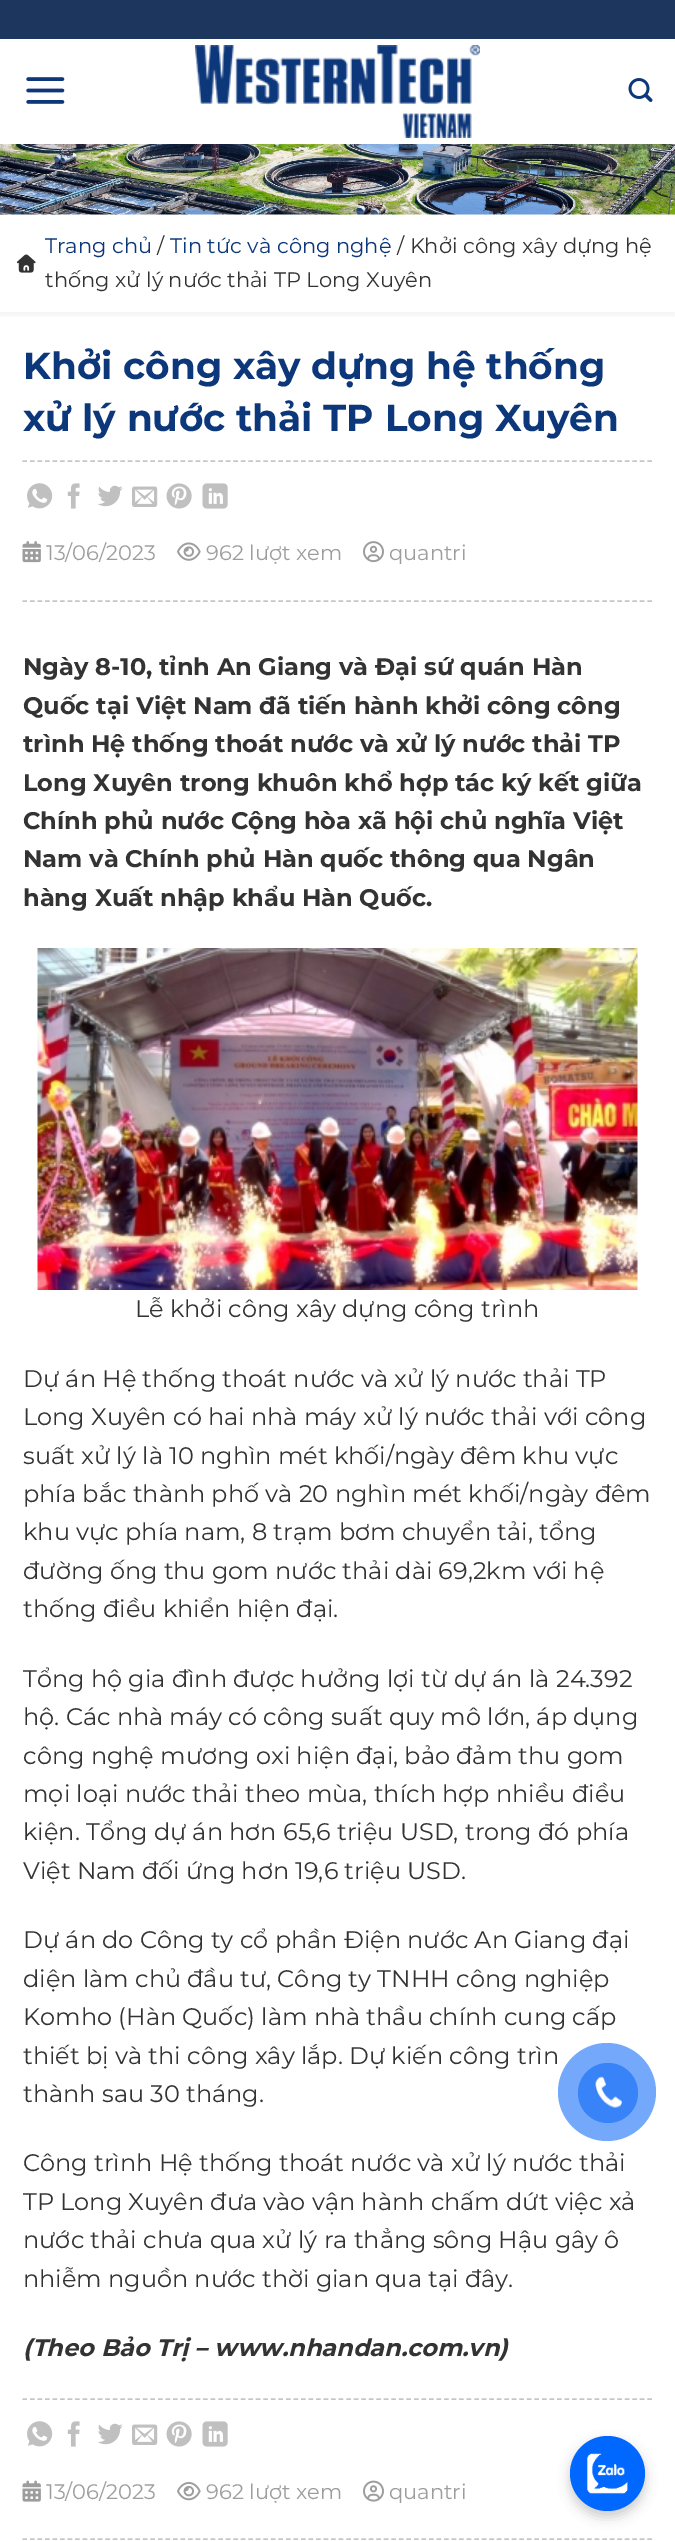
%!PS-Adobe-3.0
%%BoundingBox: 0 0 675 2541
%%LanguageLevel: 3
%%Pages: 1
%%EndComments
%%BeginProlog
/setink { dup -16 bitshift 255 div exch dup -8 bitshift 255 and 255 div exch 255 and 255 div setrgbcolor } def
/usefont { [ exch dup neg 0 0 3 -1 roll 0 0 ] selectfont } def
/setalpha { dup .setfillconstantalpha .setstrokeconstantalpha } def
/disc { newpath 0 360 arc closepath } def
/rrect { 5 dict begin { /r /h /w /y /x } { exch def } forall
  x r add y moveto x w add y 2 copy h add r arct x w add y h add x 1 index r arct
  x y h add x y r arct x y 2 copy exch w add exch r arct closepath end } def
/softshadow { 12 dict begin { /a /b /q /h /w /y /x } { exch def } forall gsave /was 0 def
  9 -2 -9 { dup b mul 4 div /e exch def 1 sub .425 mul 2.718 exch exp 1 add a .99 .min exch div /now exch def
    1 1 now sub 1 was sub div sub setalpha /was now def
    w h .min e 2 mul add 0 gt { x e sub y e sub w e 2 mul add h e 2 mul add
      q e add b .6 mul add w h .min 2 div e add .min 0 .max rrect fill } if } for grestore end } def
/drawimage { 5 dict begin { /h /w /y /x /name } { exch def } forall
  gsave x y translate w h scale
  w h 8 [w 0 0 h 0 0] name (r) file false 3 colorimage grestore end } def
%%EndProlog
%%BeginSetup
<< /PageSize [675 2541] /PageUsesTransparency true >> setpagedevice
%%EndSetup
%%Page: 1 1
0 .pushpdf14devicefilter
0 2541 translate 1 -1 scale
4 setmiterlimit
16#1D365E setink
0 0 675 2541 rectfill
16#FFFFFF setink
0 39 675 2502 rectfill
(img1.raw) 26 77 39 27 drawimage
(img2.raw) 195 45 285 93 drawimage
(img3.raw) 628 78 25 24 drawimage
gsave
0 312 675 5 rectclip
16#000000 setink
0 218 675 97 0 4 0.06 softshadow
grestore
(img4.raw) 0 144 675 71 drawimage
(img5.raw) 16 254 20 19 drawimage
/Montserrat-Regular 21 usefont
16#0C377B setink
45 253 moveto (Trang chủ) show
16#333333 setink
157 253 moveto (/) show
16#0C377B setink
170 253 moveto (Tin tức và công nghệ) show
16#333333 setink
397 253 moveto (/ Khởi công xây dựng hệ) show
45 287 moveto (thống xử lý nước thải TP Long Xuyên) show
/Montserrat-Bold 37.5 usefont
16#0C377B setink
23 379 moveto (Khởi công xây dựng hệ thống) show
23 431 moveto (xử lý nước thải TP Long Xuyên) show
16#C6C6C6 setink
1.5 setlinewidth
[4.5 3.03] 0 setdash
22.5 461 moveto 652.5 461 lineto stroke
22.5 601 moveto 652.5 601 lineto stroke
(img6.raw) 27 483 26 26 drawimage
(img7.raw) 67 483 13 26 drawimage
(img8.raw) 98 485 25 22 drawimage
(img9.raw) 132 486 26 21 drawimage
(img10.raw) 166 483 26 26 drawimage
(img11.raw) 202 483 26 26 drawimage
(img12.raw) 22 541 19 22 drawimage
/Montserrat-Regular 21 usefont
16#9D9D9D setink
46 560 moveto (13/06/2023) show
(img13.raw) 177 542 24 19 drawimage
206 560 moveto (962 lượt xem) show
(img14.raw) 363 541 21 22 drawimage
389 560 moveto (quantri) show
/Montserrat-Bold 24 usefont
16#333333 setink
[
    [(Ngày 8-10, tỉnh An Giang và Đại sứ quán Hàn) 23 675]
    [(Quốc tại Việt Nam đã tiến hành khởi công công) 23 714]
    [(trình Hệ thống thoát nước và xử lý nước thải TP) 23 752]
    [(Long Xuyên trong khuôn khổ hợp tác ký kết giữa) 23 791]
    [(Chính phủ nước Cộng hòa xã hội chủ nghĩa Việt) 23 829]
    [(Nam và Chính phủ Hàn quốc thông qua Ngân) 23 867]
    [(hàng Xuất nhập khẩu Hàn Quốc.) 23 906]
] { aload pop moveto show } forall
(img15.raw) 37 948 601 342 drawimage
/Montserrat-Regular 24 usefont
[
    [(Lễ khởi công xây dựng công trình) 135 1317]
    [(Dự án Hệ thống thoát nước và xử lý nước thải TP) 23 1387]
    [(Long Xuyên có hai nhà máy xử lý nước thải với công) 23 1425]
    [(suất xử lý là 10 nghìn mét khối/ngày đêm khu vực) 23 1464]
    [(phía bắc thành phố và 20 nghìn mét khối/ngày đêm) 23 1502]
    [(khu vực phía nam, 8 trạm bơm chuyển tải, tổng) 23 1540]
    [(đường ống thu gom nước thải dài 69,2km với hệ) 23 1579]
    [(thống điều khiển hiện đại.) 23 1617]
    [(Tổng hộ gia đình được hưởng lợi từ dự án là 24.392) 23 1687]
    [(hộ. Các nhà máy có công suất quy mô lớn, áp dụng) 23 1725]
    [(công nghệ mương oxi hiện đại, bảo đảm thu gom) 23 1764]
    [(mọi loại nước thải theo mùa, thích hợp nhiều điều) 23 1802]
    [(kiện. Tổng dự án hơn 65,6 triệu USD, trong đó phía) 23 1840]
    [(Việt Nam đối ứng hơn 19,6 triệu USD.) 23 1879]
    [(Dự án do Công ty cổ phần Điện nước An Giang đại) 23 1948]
    [(diện làm chủ đầu tư, Công ty TNHH công nghiệp) 23 1987]
    [(Komho \(Hàn Quốc\) làm nhà thầu chính cung cấp) 23 2025]
    [(thiết bị và thi công xây lắp. Dự kiến công trìn) 23 2064]
    [(thành sau 30 tháng.) 23 2102]
    [(Công trình Hệ thống thoát nước và xử lý nước thải) 23 2171]
    [(TP Long Xuyên đưa vào vận hành chấm dứt việc xả) 23 2210]
    [(nước thải chưa qua xử lý ra thẳng sông Hậu gây ô) 23 2248]
    [(nhiễm nguồn nước thời gian qua tại đây.) 23 2287]
] { aload pop moveto show } forall
/Montserrat-BoldItalic 24 usefont
23 2356 moveto (\(Theo Bảo Trị – www.nhandan.com.vn\)) show
16#C6C6C6 setink
22.5 2399 moveto 652.5 2399 lineto stroke
22.5 2539 moveto 652.5 2539 lineto stroke
(img6.raw) 27 2421 26 26 drawimage
(img7.raw) 67 2421 13 26 drawimage
(img8.raw) 98 2423 25 22 drawimage
(img9.raw) 132 2424 26 21 drawimage
(img10.raw) 166 2421 26 26 drawimage
(img11.raw) 202 2421 26 26 drawimage
(img16.raw) 22 2480 19 22 drawimage
/Montserrat-Regular 21 usefont
16#9D9D9D setink
46 2499 moveto (13/06/2023) show
(img17.raw) 177 2482 24 19 drawimage
206 2499 moveto (962 lượt xem) show
(img18.raw) 363 2480 21 22 drawimage
389 2499 moveto (quantri) show
0.7 setalpha
16#3983F9 setink
607 2092 49 disc fill
1 setalpha
608 2093 30 disc fill
(img19.raw) 595 2076 27 32 drawimage
16#000000 setink
570 2442 75 75 37.5 6 0.2 softshadow
16#0068FF setink
607.5 2473.5 37.5 disc fill
(img20.raw) 587 2453 41 41 drawimage
.poppdf14devicefilter showpage
%%EOF
